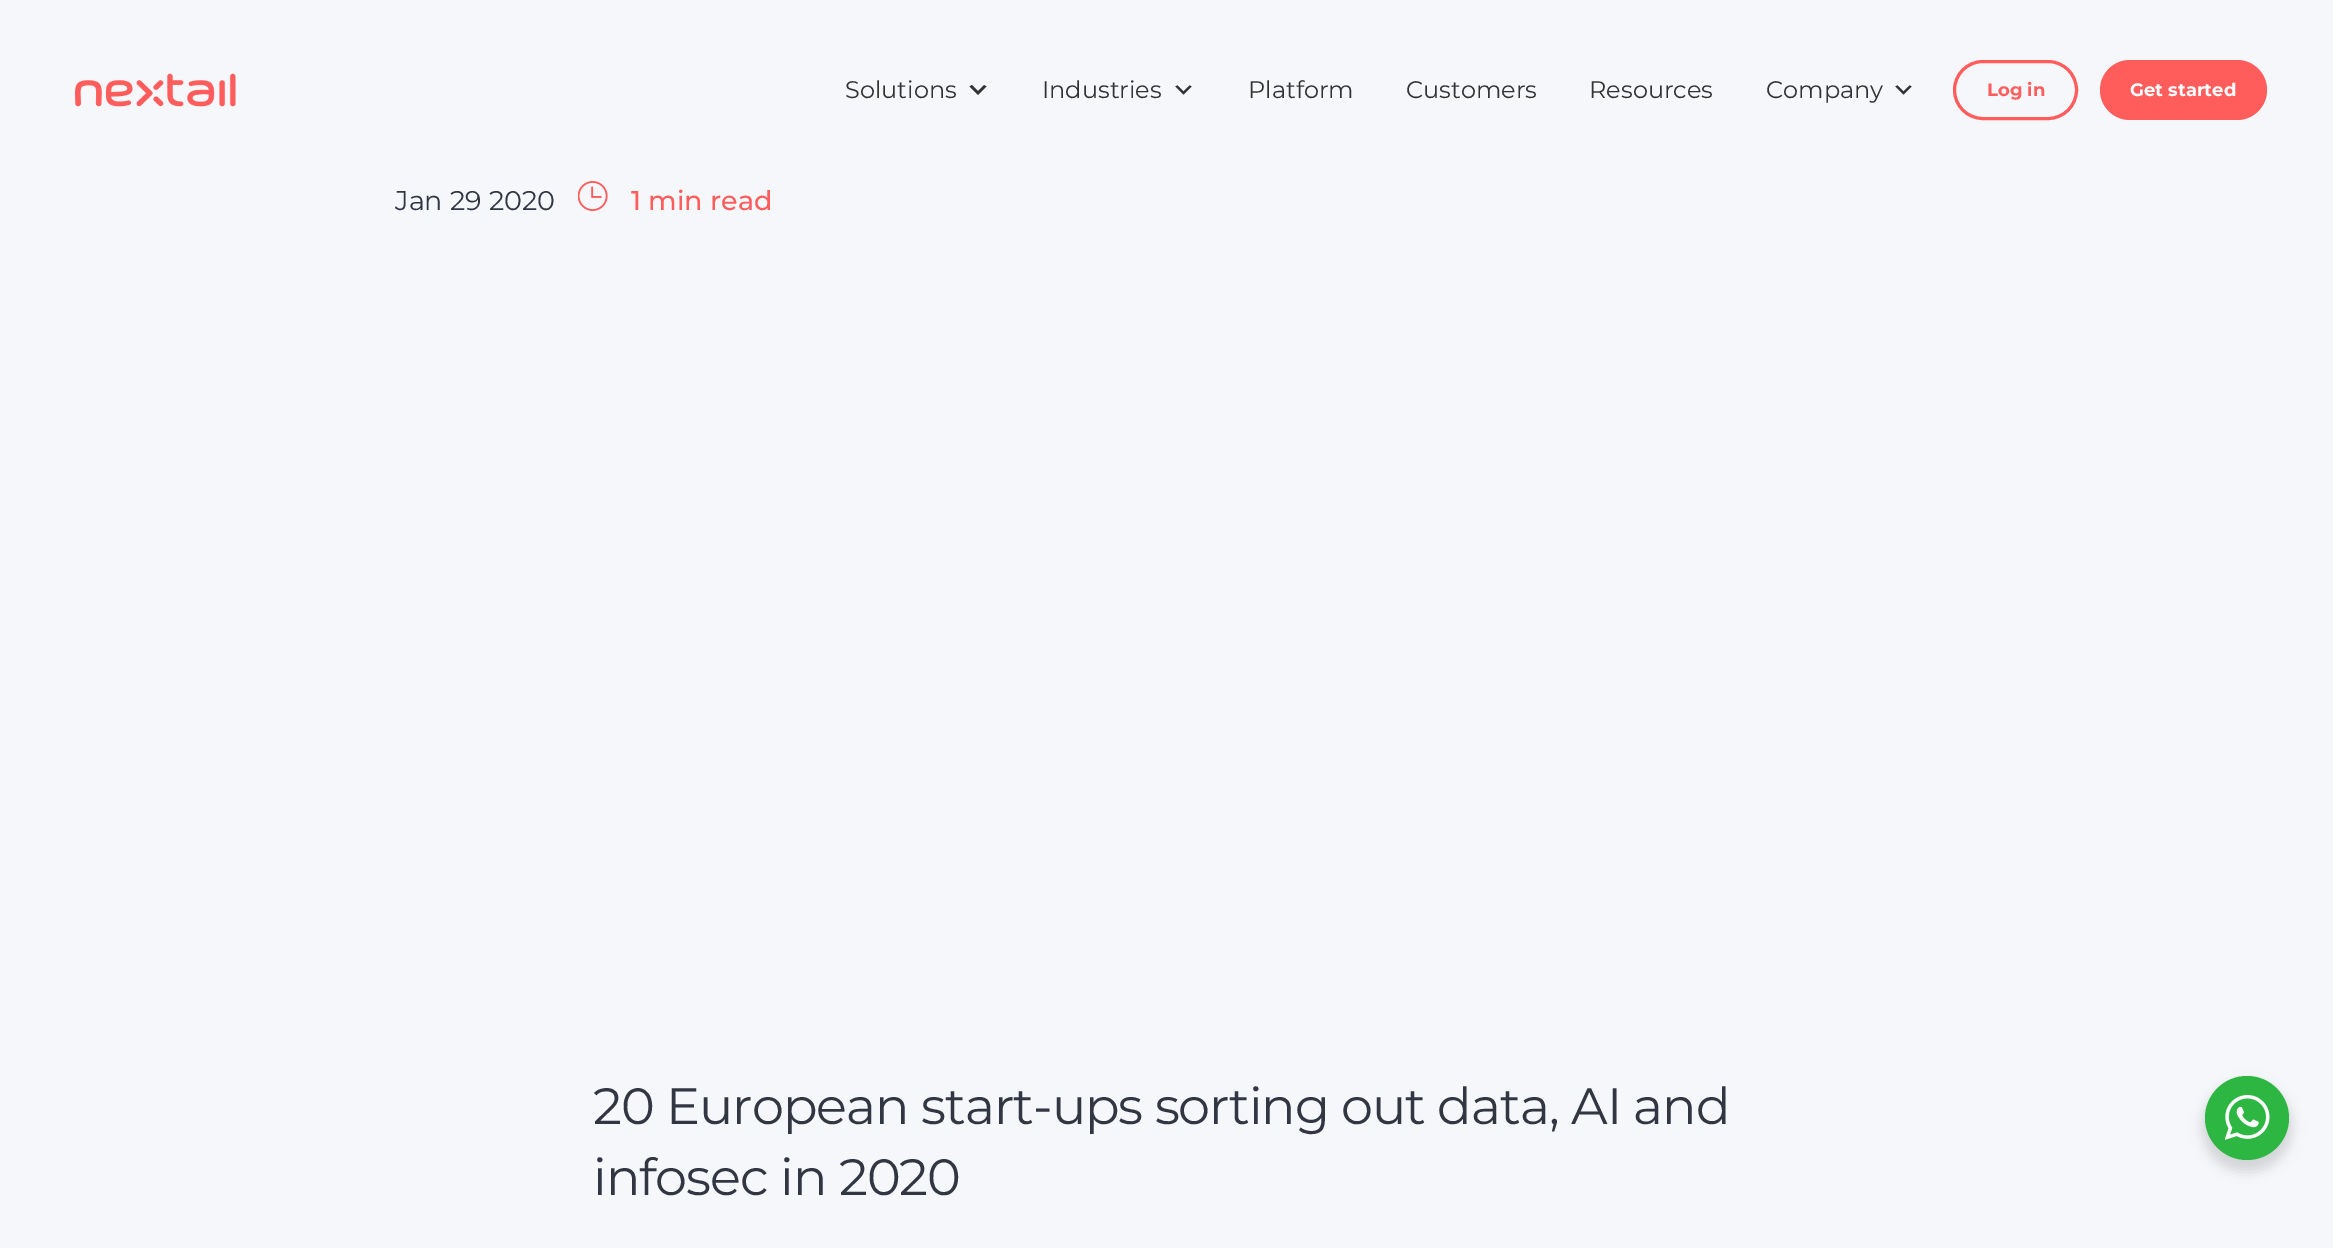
%!PS-Adobe-3.0
%%BoundingBox: 0 0 2333 1248
%%LanguageLevel: 3
%%Pages: 1
%%EndComments
%%BeginProlog
/setink { dup -16 bitshift 255 div exch dup -8 bitshift 255 and 255 div exch 255 and 255 div setrgbcolor } def
/usefont { [ exch dup neg 0 0 3 -1 roll 0 0 ] selectfont } def
/setalpha { dup .setfillconstantalpha .setstrokeconstantalpha } def
/disc { newpath 0 360 arc closepath } def
/rrect { 5 dict begin { /r /h /w /y /x } { exch def } forall
  x r add y moveto x w add y 2 copy h add r arct x w add y h add x 1 index r arct
  x y h add x y r arct x y 2 copy exch w add exch r arct closepath end } def
/softshadow { 12 dict begin { /a /b /q /h /w /y /x } { exch def } forall gsave /was 0 def
  9 -2 -9 { dup b mul 4 div /e exch def 1 sub .425 mul 2.718 exch exp 1 add a .99 .min exch div /now exch def
    1 1 now sub 1 was sub div sub setalpha /was now def
    w h .min e 2 mul add 0 gt { x e sub y e sub w e 2 mul add h e 2 mul add
      q e add b .6 mul add w h .min 2 div e add .min 0 .max rrect fill } if } for grestore end } def
/drawimage { 5 dict begin { /h /w /y /x /name } { exch def } forall
  gsave x y translate w h scale
  w h 8 [w 0 0 h 0 0] name (r) file false 3 colorimage grestore end } def
%%EndProlog
%%BeginSetup
<< /PageSize [2333 1248] /PageUsesTransparency true >> setpagedevice
%%EndSetup
%%Page: 1 1
0 .pushpdf14devicefilter
0 1248 translate 1 -1 scale
4 setmiterlimit
16#F5F7FA setink
0 0 2333 1248 rectfill
(img1.raw) 75 73 161 34 drawimage
/Montserrat-Regular 24 usefont
16#333333 setink
845 98 moveto (Solutions) show
972 85 moveto 978 91 lineto 984 85 lineto 986.5 86.5 lineto 978 95 lineto 969.5 86.5 lineto closepath fill
1042 98 moveto (Industries) show
(img2.raw) 1175 85 17 10 drawimage
[
    [(Platform) 1248 98]
    [(Customers) 1406 98]
    [(Resources) 1589 98]
    [(Company) 1766 98]
] { aload pop moveto show } forall
(img2.raw) 1895 85 17 10 drawimage
16#FF5C5C setink
3 setlinewidth
1954.5 61.5 122 57 28.5 rrect stroke
/Montserrat-Bold 18 usefont
1987 96 moveto (Log in) show
2100 60 167 60 30 rrect fill
16#FFFFFF setink
2130 96 moveto (Get started) show
/Montserrat-Regular 27 usefont
16#313642 setink
395 210 moveto (Jan 29 2020) show
(img3.raw) 578 181 30 30 drawimage
/Montserrat-Medium 27 usefont
16#FF5C5C setink
631 210 moveto (1 min read) show
/Montserrat-Regular 51 usefont
16#313642 setink
593 1124 moveto -1 0 (20 European start-ups sorting out data, AI and) ashow
593 1195 moveto -1 0 (infosec in 2020) ashow
16#000000 setink
2202 1082 90 90 45 6 0.14 softshadow
16#2DB742 setink
2247 1118 42 disc fill
(img4.raw) 2225 1095 45 45 drawimage
.poppdf14devicefilter showpage
%%EOF
